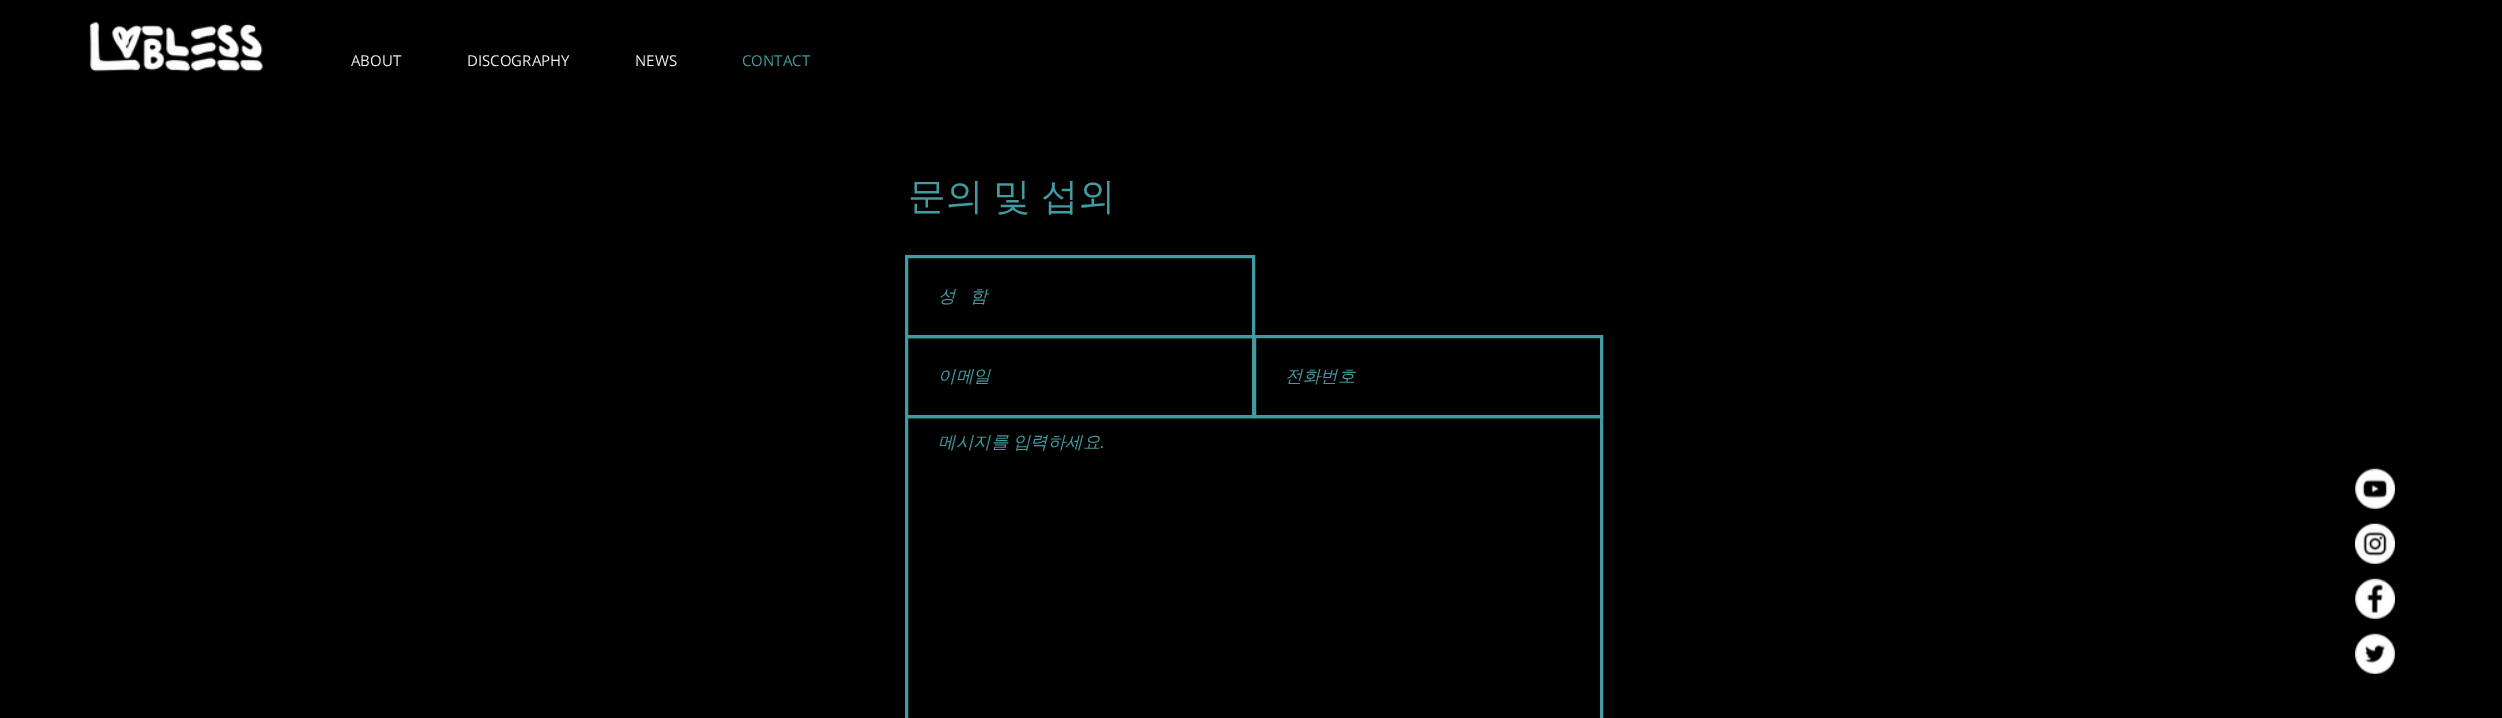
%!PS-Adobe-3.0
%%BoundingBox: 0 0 2502 718
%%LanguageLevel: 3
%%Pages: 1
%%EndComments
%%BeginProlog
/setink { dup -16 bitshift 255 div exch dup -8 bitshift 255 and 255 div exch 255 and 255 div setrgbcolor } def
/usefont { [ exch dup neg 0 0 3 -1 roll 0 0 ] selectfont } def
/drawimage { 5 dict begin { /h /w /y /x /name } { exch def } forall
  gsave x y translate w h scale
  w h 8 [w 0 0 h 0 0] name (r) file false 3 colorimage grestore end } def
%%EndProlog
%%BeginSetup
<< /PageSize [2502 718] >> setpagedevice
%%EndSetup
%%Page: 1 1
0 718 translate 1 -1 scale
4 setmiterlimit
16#000000 setink
0 0 2502 718 rectfill
(img1.raw) 89 21 174 51 drawimage
/OpenSans-Regular 15 usefont
16#F1F1F1 setink
[
    [(ABOUT) 351 66]
    [(DISCOGRAPHY) 467 66]
    [(NEWS) 635 66]
] { aload pop moveto show } forall
16#439AA0 setink
742 66 moveto (CONTACT) show
/WenQuanYiZenHei-Medium 37.5 usefont
908 209 moveto -1 0 32 (문의 및 섭외) widthshow
3 setlinewidth
906.5 256.5 347 80 rectstroke
/WenQuanYiZenHei-MediumItalic 17.5 usefont
938 302 moveto -0.5 0 32 (성   함) widthshow
906.5 336.5 347 80 rectstroke
938 382 moveto (이메일) show
1254.5 336.5 347 80 rectstroke
1285 382 moveto (전화번호) show
906.5 416.5 695 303 rectstroke
938 448 moveto -0.5 0 32 (메시지를 입력하세요) widthshow
/LiberationSans-Italic 17.5 usefont
1100 448 moveto (.) show
(img2.raw) 2355 468 40 41 drawimage
(img3.raw) 2355 523 40 41 drawimage
(img4.raw) 2355 578 40 41 drawimage
(img5.raw) 2355 633 40 41 drawimage
showpage
%%EOF
